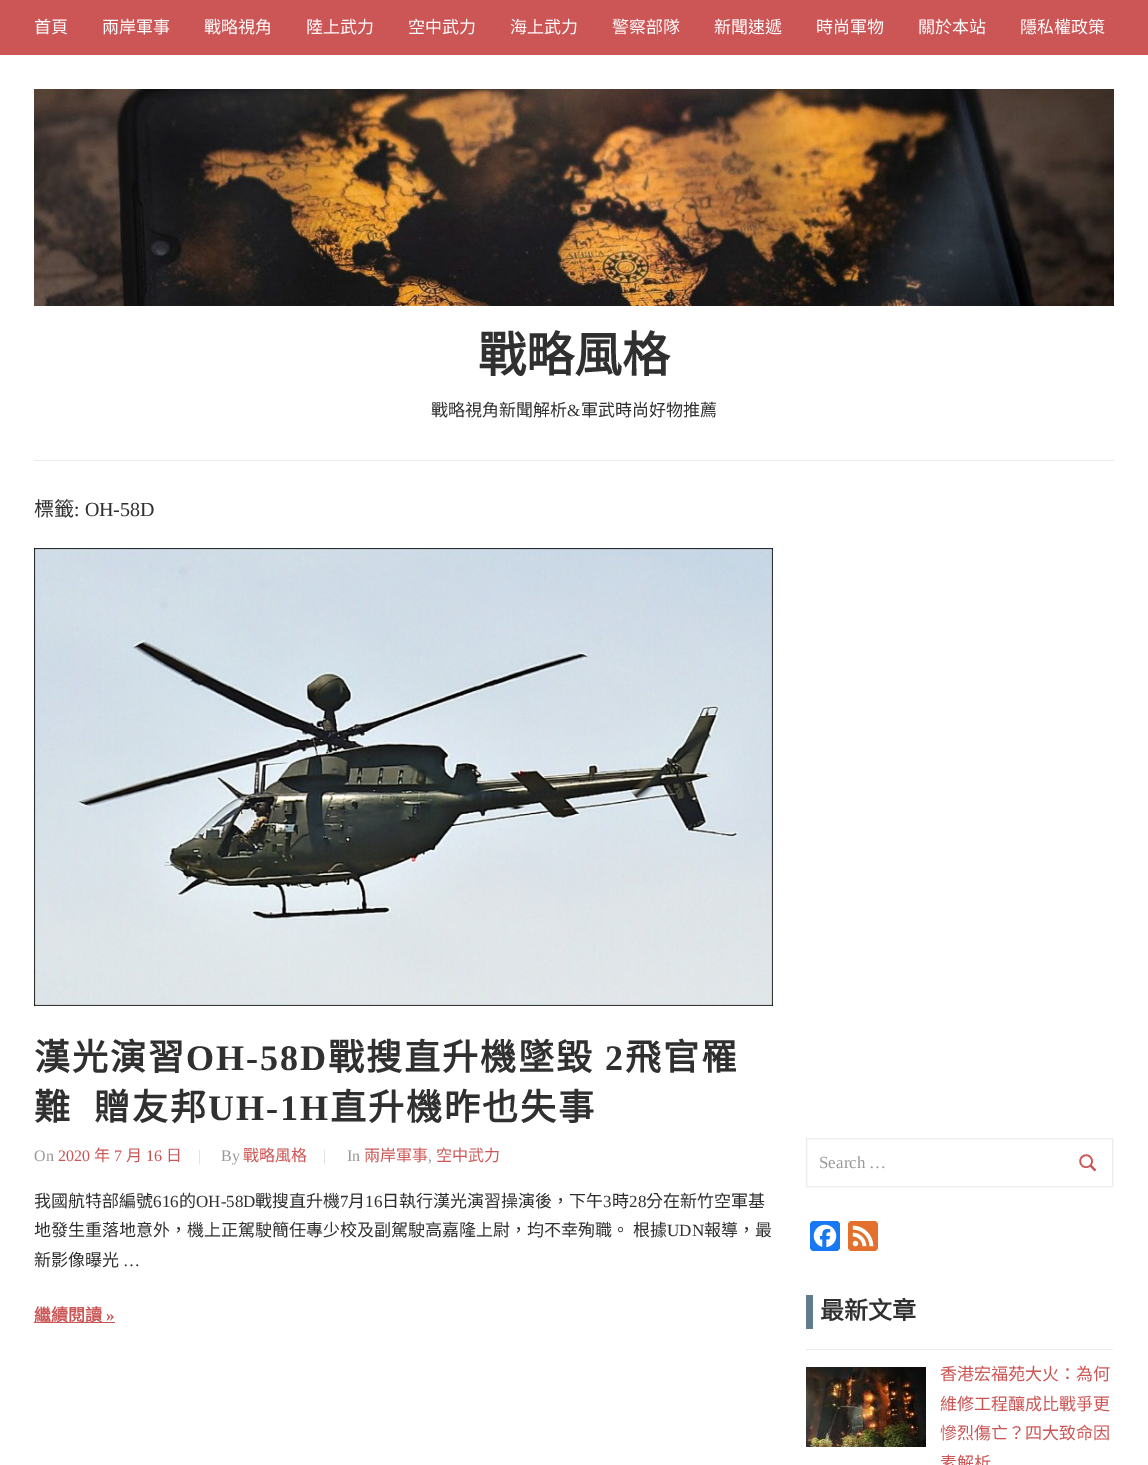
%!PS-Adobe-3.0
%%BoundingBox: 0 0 1148 1465
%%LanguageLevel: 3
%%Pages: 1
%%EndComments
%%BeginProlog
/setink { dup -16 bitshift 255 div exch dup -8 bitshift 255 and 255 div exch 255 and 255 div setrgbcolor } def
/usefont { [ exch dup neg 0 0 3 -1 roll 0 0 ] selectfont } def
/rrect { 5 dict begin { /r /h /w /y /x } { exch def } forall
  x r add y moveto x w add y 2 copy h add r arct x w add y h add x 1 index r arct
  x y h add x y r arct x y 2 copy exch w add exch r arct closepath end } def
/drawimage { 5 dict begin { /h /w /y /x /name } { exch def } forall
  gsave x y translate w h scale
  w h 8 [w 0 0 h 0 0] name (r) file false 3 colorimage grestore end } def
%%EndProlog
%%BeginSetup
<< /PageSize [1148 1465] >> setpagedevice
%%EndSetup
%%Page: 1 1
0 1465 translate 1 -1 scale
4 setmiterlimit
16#FFFFFF setink
0 0 1148 1465 rectfill
16#CC5555 setink
0 0 1148 55 rectfill
/NotoSansCJKTC-Regular 17 usefont
16#FFFFFF setink
[
    [(首頁) 34 33]
    [(兩岸軍事) 102 33]
    [(戰略視角) 204 33]
    [(陸上武力) 306 33]
    [(空中武力) 408 33]
    [(海上武力) 510 33]
    [(警察部隊) 612 33]
    [(新聞速遞) 714 33]
    [(時尚軍物) 816 33]
    [(關於本站) 918 33]
    [(隱私權政策) 1020 33]
] { aload pop moveto show } forall
16#ECECEC setink
34 460 1080 1 rectfill
(img1.raw) 34 89 1080 217 drawimage
/NotoSansCJKTC-Bold 48 usefont
16#303030 setink
478 372 moveto (戰略風格) show
/NotoSansCJKTC-Regular 17 usefont
431 416 moveto (戰略視角新聞解析) show
/LiberationSerif-Regular 17 usefont
567 416 moveto (&) show
/NotoSansCJKTC-Regular 17 usefont
581 416 moveto (軍武時尚好物推薦) show
/NotoSansCJKTC-Regular 20 usefont
34 516 moveto (標籤) show
/LiberationSerif-Regular 20 usefont
74 516 moveto (: OH-58D) show
(img2.raw) 34 548 739 458 drawimage
/NotoSansCJKTC-Bold 36 usefont
34 1070 moveto 2 0 (漢光演習) ashow
/LiberationSerif-Bold 36 usefont
186 1070 moveto 2 0 (OH-58D) ashow
/NotoSansCJKTC-Bold 36 usefont
328 1070 moveto 2 0 (戰搜直升機墜毀) ashow
/LiberationSerif-Bold 36 usefont
605 1070 moveto 2 0 (2) ashow
/NotoSansCJKTC-Bold 36 usefont
625 1070 moveto 2 0 (飛官罹) ashow
34 1120 moveto 1 0 32 2 0 (難  贈友邦) awidthshow
/LiberationSerif-Bold 36 usefont
208 1120 moveto 2 0 (UH-1H) ashow
/NotoSansCJKTC-Bold 36 usefont
330 1120 moveto 2 0 (直升機昨也失事) ashow
/LiberationSerif-Regular 16 usefont
16#999999 setink
34 1161 moveto (On) show
16#CC5555 setink
58 1161 moveto (2020) show
/NotoSansCJKTC-Regular 16 usefont
94 1161 moveto (年) show
/LiberationSerif-Regular 16 usefont
114 1161 moveto (7) show
/NotoSansCJKTC-Regular 16 usefont
126 1161 moveto (月) show
/LiberationSerif-Regular 16 usefont
146 1161 moveto (16) show
/NotoSansCJKTC-Regular 16 usefont
166 1161 moveto (日) show
/LiberationSerif-Regular 16 usefont
16#D9D9D9 setink
198 1161 moveto (|) show
16#999999 setink
221 1161 moveto (By) show
/NotoSansCJKTC-Regular 16 usefont
16#CC5555 setink
243 1161 moveto (戰略風格) show
/LiberationSerif-Regular 16 usefont
16#D9D9D9 setink
323 1161 moveto (|) show
16#999999 setink
347 1161 moveto (In) show
/NotoSansCJKTC-Regular 16 usefont
16#CC5555 setink
364 1161 moveto (兩岸軍事) show
436 1161 moveto (空中武力) show
/LiberationSerif-Regular 16 usefont
16#999999 setink
428 1161 moveto (,) show
/NotoSansCJKTC-Regular 17 usefont
16#303030 setink
34 1207 moveto (我國航特部編號) show
/LiberationSerif-Regular 17 usefont
153 1207 moveto (616) show
/NotoSansCJKTC-Regular 17 usefont
179 1207 moveto (的) show
/LiberationSerif-Regular 17 usefont
196 1207 moveto (OH-58D) show
/NotoSansCJKTC-Regular 17 usefont
255 1207 moveto (戰搜直升機) show
/LiberationSerif-Regular 17 usefont
340 1207 moveto (7) show
/NotoSansCJKTC-Regular 17 usefont
348 1207 moveto (月) show
/LiberationSerif-Regular 17 usefont
365 1207 moveto (16) show
/NotoSansCJKTC-Regular 17 usefont
382 1207 moveto (日執行漢光演習操演後，下午) show
/LiberationSerif-Regular 17 usefont
603 1207 moveto (3) show
/NotoSansCJKTC-Regular 17 usefont
612 1207 moveto (時) show
/LiberationSerif-Regular 17 usefont
629 1207 moveto (28) show
/NotoSansCJKTC-Regular 17 usefont
646 1207 moveto (分在新竹空軍基) show
34 1236 moveto (地發生重落地意外，機上正駕駛簡任專少校及副駕駛高嘉隆上尉，均不幸殉職。 根據) show
/LiberationSerif-Regular 17 usefont
667 1236 moveto (UDN) show
/NotoSansCJKTC-Regular 17 usefont
704 1236 moveto (報導，最) show
34 1266 moveto (新影像曝光) show
/LiberationSerif-Regular 17 usefont
123 1266 moveto (…) show
16#CC5555 setink
34 1322 81 1 rectfill
/NotoSansCJKTC-Bold 17 usefont
34 1321 moveto (繼續閱讀) show
/LiberationSerif-Bold 17 usefont
106 1321 moveto (») show
16#ECECEC setink
806.5 1138.5 306 48 rectstroke
/LiberationSerif-Regular 17 usefont
16#999999 setink
819 1168 moveto (Search …) show
(img3.raw) 1079 1154 18 18 drawimage
16#1877F2 setink
810 1221 30 30 4 rrect fill
(img4.raw) 813 1224 24 24 drawimage
16#E3702D setink
848 1221 30 30 4 rrect fill
(img5.raw) 852 1225 22 22 drawimage
16#607D8B setink
806 1295 7 34 rectfill
/NotoSansCJKTC-Bold 24 usefont
16#303030 setink
820 1319 moveto (最新文章) show
16#ECECEC setink
806 1349 307 1 rectfill
(img6.raw) 806 1367 120 80 drawimage
/NotoSansCJKTC-Regular 17 usefont
16#CC5555 setink
[
    [(香港宏福苑大火：為何) 940 1380]
    [(維修工程釀成比戰爭更) 940 1410]
    [(慘烈傷亡？四大致命因) 940 1439]
    [(素解析) 940 1469]
] { aload pop moveto show } forall
showpage
%%EOF
